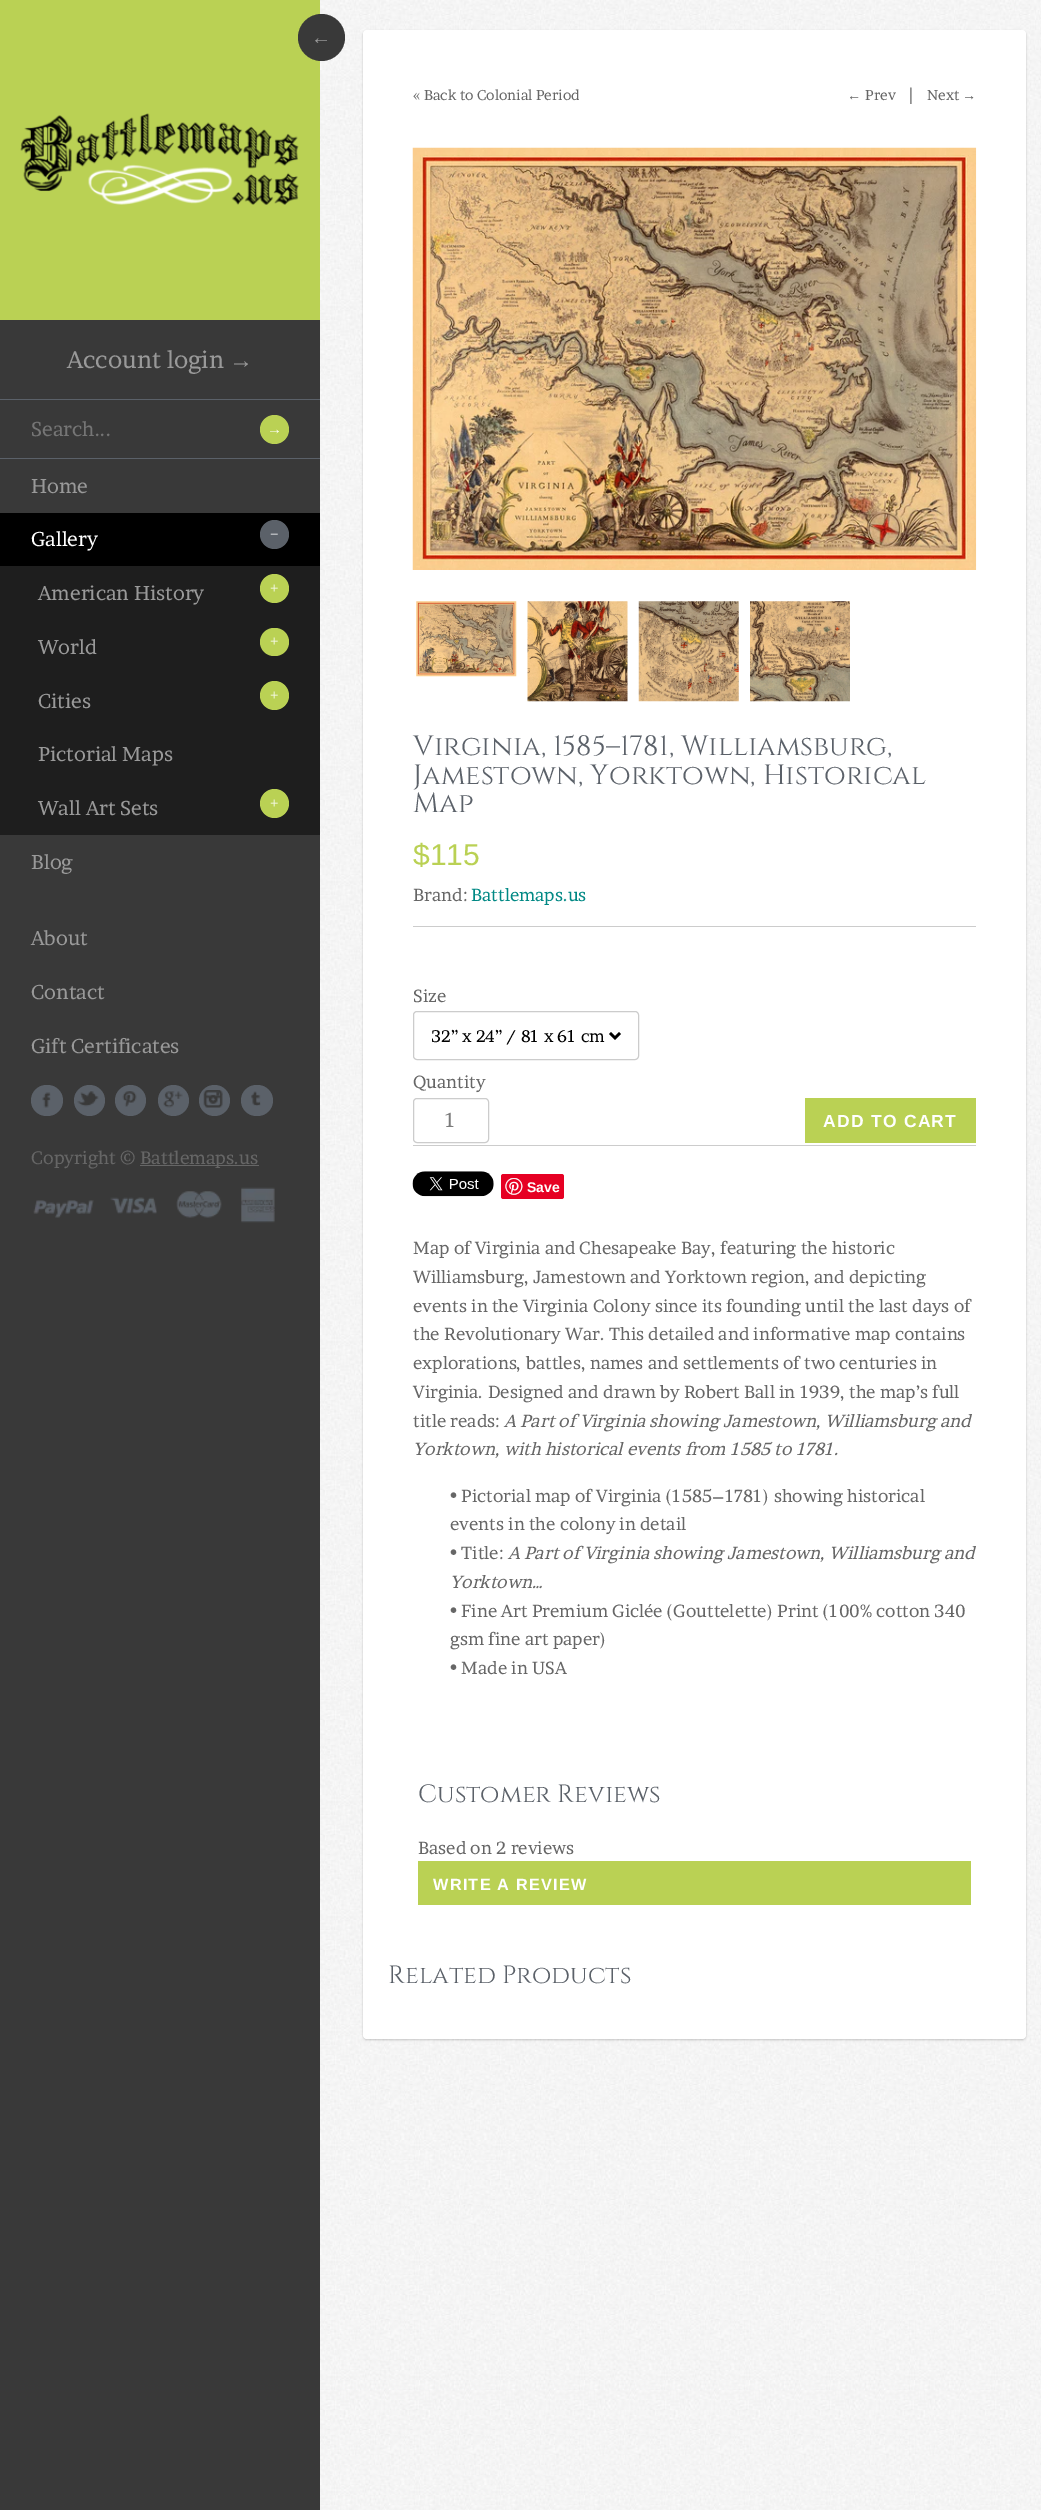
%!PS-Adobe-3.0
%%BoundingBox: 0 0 1041 2510
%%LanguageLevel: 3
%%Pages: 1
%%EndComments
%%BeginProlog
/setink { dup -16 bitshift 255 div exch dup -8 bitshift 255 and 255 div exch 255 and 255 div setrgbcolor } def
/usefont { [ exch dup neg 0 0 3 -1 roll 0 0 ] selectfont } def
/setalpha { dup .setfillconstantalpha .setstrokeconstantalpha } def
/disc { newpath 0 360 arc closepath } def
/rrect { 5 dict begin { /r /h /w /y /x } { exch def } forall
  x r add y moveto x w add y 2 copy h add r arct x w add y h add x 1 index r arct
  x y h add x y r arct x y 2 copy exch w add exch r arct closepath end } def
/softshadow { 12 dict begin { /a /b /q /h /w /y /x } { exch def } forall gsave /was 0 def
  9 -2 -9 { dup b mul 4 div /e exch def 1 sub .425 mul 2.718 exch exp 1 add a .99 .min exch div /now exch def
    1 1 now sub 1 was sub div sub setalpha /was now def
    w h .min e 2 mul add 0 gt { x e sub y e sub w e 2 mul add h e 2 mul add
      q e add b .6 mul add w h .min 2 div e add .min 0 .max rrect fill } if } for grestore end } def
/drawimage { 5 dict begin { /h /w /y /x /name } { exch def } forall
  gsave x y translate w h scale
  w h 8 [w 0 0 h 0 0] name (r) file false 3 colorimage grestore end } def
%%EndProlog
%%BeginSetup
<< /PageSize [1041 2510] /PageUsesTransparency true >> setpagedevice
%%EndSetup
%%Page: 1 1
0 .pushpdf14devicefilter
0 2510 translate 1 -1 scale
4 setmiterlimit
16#FFFFFF setink
0 0 1041 2510 rectfill
(img1.raw) 320 0 721 2510 drawimage
16#393939 setink
0 320 320 2190 rectfill
16#BAD154 setink
0 0 320 320 rectfill
(img2.raw) 20 113 279 92 drawimage
16#393939 setink
321.5 37.5 23.5 disc fill
/LiberationSerif-Regular 20 usefont
16#999999 setink
311 44 moveto (←) show
/Brawler-Regular 24 usefont
67 368 moveto (Account login) show
/LiberationSerif-Regular 24 usefont
229 368 moveto (→) show
16#5B6169 setink
0 399 320 1 rectfill
0 458 320 1 rectfill
/Brawler-Regular 20 usefont
16#757575 setink
31 436 moveto (Search...) show
16#BAD154 setink
274.5 429.5 14.5 disc fill
/LiberationSerif-Regular 15 usefont
16#FFFFFF setink
267 434 moveto (→) show
/Brawler-Regular 20 usefont
16#999999 setink
31 493 moveto (Home) show
16#000000 setink
0 513 320 53 rectfill
16#FFFFFF setink
31 546 moveto (Gallery) show
16#5B6169 setink
274.5 534.5 14.5 disc fill
/LiberationSerif-Regular 15 usefont
16#FFFFFF setink
270 539 moveto (−) show
16#1E1E1E setink
0 566 320 269 rectfill
/Brawler-Regular 20 usefont
16#999999 setink
38 600 moveto (American History) show
16#BAD154 setink
274.5 588.5 14.5 disc fill
/LiberationSerif-Regular 15 usefont
16#FFFFFF setink
270 593 moveto (+) show
/Brawler-Regular 20 usefont
16#999999 setink
38 654 moveto (World) show
16#BAD154 setink
260 628 29 28 14 rrect fill
/LiberationSerif-Regular 15 usefont
16#FFFFFF setink
270 646 moveto (+) show
/Brawler-Regular 20 usefont
16#999999 setink
38 708 moveto (Cities) show
16#BAD154 setink
274.5 695.5 14.5 disc fill
/LiberationSerif-Regular 15 usefont
16#FFFFFF setink
270 700 moveto (+) show
/Brawler-Regular 20 usefont
16#999999 setink
38 761 moveto (Pictorial Maps) show
38 815 moveto (Wall Art Sets) show
16#BAD154 setink
274.5 803.5 14.5 disc fill
/LiberationSerif-Regular 15 usefont
16#FFFFFF setink
270 808 moveto (+) show
/Brawler-Regular 20 usefont
16#999999 setink
[
    [(Blog) 31 869]
    [(About) 31 945]
    [(Contact) 31 999]
    [(Gift Certificates) 31 1053]
] { aload pop moveto show } forall
16#5B6169 setink
31 1085 32 31 15.5 rrect fill
(img3.raw) 42 1092 9 16 drawimage
89.5 1100.5 15.5 disc fill
(img4.raw) 77 1091 22 16 drawimage
130.5 1100.5 15.5 disc fill
(img5.raw) 122 1091 15 16 drawimage
173.5 1100.5 15.5 disc fill
(img6.raw) 163 1091 20 17 drawimage
214.5 1100.5 15.5 disc fill
(img7.raw) 203 1090 20 18 drawimage
241 1085 32 31 15.5 rrect fill
(img8.raw) 251 1091 10 15 drawimage
/Brawler-Regular 18 usefont
16#666666 setink
31 1164 moveto (Copyright ©) show
140 1165 119 1 rectfill
140 1164 moveto (Battlemaps.us) show
(img9.raw) 33 1200 61 18 drawimage
(img10.raw) 110 1197 47 17 drawimage
(img11.raw) 176 1191 46 27 drawimage
(img12.raw) 241 1187 34 36 drawimage
16#000000 setink
363 31 663 2009 4 1 0.2 softshadow
16#FFFFFF setink
363 30 663 2009 4 rrect fill
/Brawler-Regular 14.25 usefont
16#666666 setink
413 100 moveto (« Back to Colonial Period) show
/LiberationSerif-Regular 14.25 usefont
847 100 moveto (←) show
/Brawler-Regular 14.25 usefont
865 100 moveto (Prev) show
/Brawler-Regular 16 usefont
909 100 moveto (|) show
/Brawler-Regular 14.25 usefont
927 100 moveto (Next) show
/LiberationSerif-Regular 14.25 usefont
962 100 moveto (→) show
(img13.raw) 412 147 565 423 drawimage
(img14.raw) 416 601 101 76 drawimage
(img15.raw) 527 601 101 101 drawimage
(img16.raw) 638 601 101 101 drawimage
(img17.raw) 750 601 100 101 drawimage
/Cinzel-Regular 28 usefont
16#5B6169 setink
[
    [(Virginia, 1585–1781, Williamsburg,) 413 755]
    [(Jamestown, Yorktown, Historical) 413 784]
    [(Map) 413 812]
] { aload pop moveto show } forall
/LiberationSans-Regular 30 usefont
16#BAD154 setink
413 865 moveto ($115) show
/Brawler-Regular 17.5 usefont
16#666666 setink
413 901 moveto (Brand:) show
16#008884 setink
471 901 moveto (Battlemaps.us) show
16#CCCCCC setink
413 926 563 1 rectfill
16#666666 setink
413 1002 moveto (Size) show
16#CCCCCC setink
413.5 1011.5 225 48 3.5 rrect stroke
16#000000 setink
2.5 setlinewidth
610 1033 moveto 615 1038 lineto 620 1033 lineto stroke
/Brawler-Regular 16.75 usefont
431 1042 moveto (32” x 24” / 81 x 61 cm) show
/Brawler-Regular 17.5 usefont
16#666666 setink
413 1088 moveto (Quantity) show
16#CCCCCC setink
1 setlinewidth
413.5 1098.5 75 44 3.5 rrect stroke
/Brawler-Regular 20 usefont
16#7C7C7C setink
445 1127 moveto (1) show
16#BAD154 setink
805 1098 171 45 rectfill
/LiberationSans-Bold 17.5 usefont
16#FFFFFF setink
823 1127 moveto 1.25 0 (ADD TO CART) ashow
16#CCCCCC setink
413 1145 563 1 rectfill
(img18.raw) 412 1171 82 26 drawimage
16#E60023 setink
501 1174 63 25 2.5 rrect fill
(img19.raw) 505 1178 18 17 drawimage
/LiberationSans-Bold 14 usefont
16#FFFFFF setink
527 1192 moveto (Save) show
/Brawler-Regular 17.5 usefont
16#666666 setink
[
    [(Map of Virginia and Chesapeake Bay, featuring the historic) 413 1254]
    [(Williamsburg, Jamestown and Yorktown region, and depicting) 413 1283]
    [(events in the Virginia Colony since its founding until the last days of) 413 1312]
    [(the Revolutionary War. This detailed and informative map contains) 413 1340]
    [(explorations, battles, names and settlements of two centuries in) 413 1369]
    [(Virginia. Designed and drawn by Robert Ball in 1939, the map’s full) 413 1398]
    [(title reads:) 413 1427]
] { aload pop moveto show } forall
/Brawler-Italic 17.5 usefont
504 1427 moveto (A Part of Virginia showing Jamestown, Williamsburg and) show
413 1455 moveto (Yorktown, with historical events from 1585 to 1781.) show
/Brawler-Regular 17.5 usefont
[
    [(• Pictorial map of Virginia \(1585–1781\) showing historical) 450 1502]
    [(events in the colony in detail) 450 1530]
    [(• Title:) 450 1559]
] { aload pop moveto show } forall
/Brawler-Italic 17.5 usefont
508 1559 moveto (A Part of Virginia showing Jamestown, Williamsburg and) show
450 1588 moveto (Yorktown…) show
/Brawler-Regular 17.5 usefont
[
    [(• Fine Art Premium Giclée \(Gouttelette\) Print \(100% cotton 340) 450 1617]
    [(gsm fine art paper\)) 450 1645]
    [(• Made in USA) 450 1674]
] { aload pop moveto show } forall
/Cinzel-Regular 25 usefont
16#5B6169 setink
418 1802 moveto (Customer Reviews) show
/Brawler-Regular 17.5 usefont
16#666666 setink
418 1854 moveto (Based on 2 reviews) show
16#BAD154 setink
418 1861 553 44 rectfill
/LiberationSans-Bold 16.25 usefont
16#FFFFFF setink
433 1890 moveto 1.25 0 (WRITE A REVIEW) ashow
/Cinzel-Regular 25 usefont
16#5B6169 setink
388 1983 moveto (Related Products) show
.poppdf14devicefilter showpage
%%EOF
